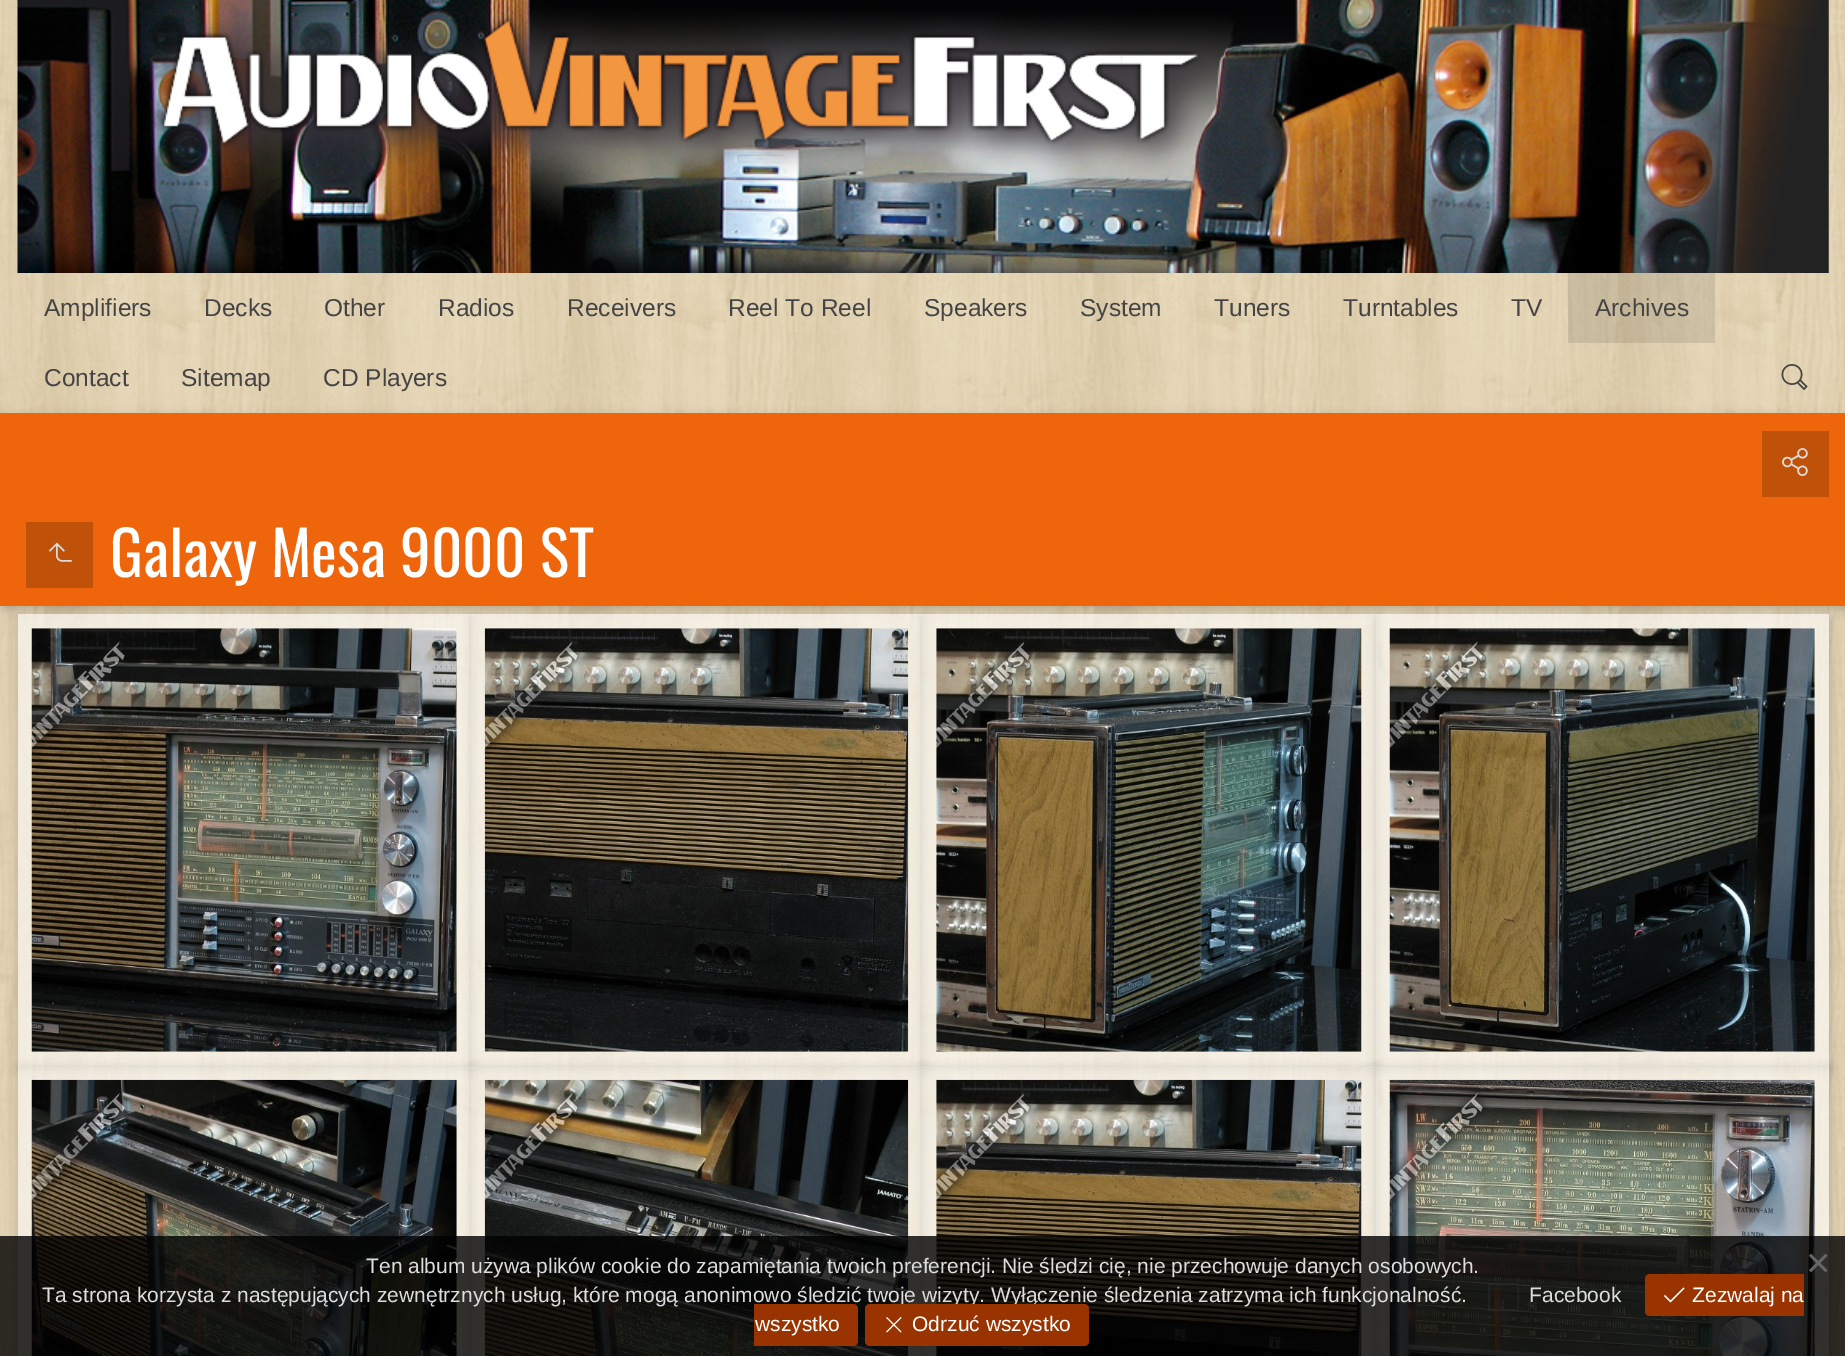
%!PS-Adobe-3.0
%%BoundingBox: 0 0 1845 1356
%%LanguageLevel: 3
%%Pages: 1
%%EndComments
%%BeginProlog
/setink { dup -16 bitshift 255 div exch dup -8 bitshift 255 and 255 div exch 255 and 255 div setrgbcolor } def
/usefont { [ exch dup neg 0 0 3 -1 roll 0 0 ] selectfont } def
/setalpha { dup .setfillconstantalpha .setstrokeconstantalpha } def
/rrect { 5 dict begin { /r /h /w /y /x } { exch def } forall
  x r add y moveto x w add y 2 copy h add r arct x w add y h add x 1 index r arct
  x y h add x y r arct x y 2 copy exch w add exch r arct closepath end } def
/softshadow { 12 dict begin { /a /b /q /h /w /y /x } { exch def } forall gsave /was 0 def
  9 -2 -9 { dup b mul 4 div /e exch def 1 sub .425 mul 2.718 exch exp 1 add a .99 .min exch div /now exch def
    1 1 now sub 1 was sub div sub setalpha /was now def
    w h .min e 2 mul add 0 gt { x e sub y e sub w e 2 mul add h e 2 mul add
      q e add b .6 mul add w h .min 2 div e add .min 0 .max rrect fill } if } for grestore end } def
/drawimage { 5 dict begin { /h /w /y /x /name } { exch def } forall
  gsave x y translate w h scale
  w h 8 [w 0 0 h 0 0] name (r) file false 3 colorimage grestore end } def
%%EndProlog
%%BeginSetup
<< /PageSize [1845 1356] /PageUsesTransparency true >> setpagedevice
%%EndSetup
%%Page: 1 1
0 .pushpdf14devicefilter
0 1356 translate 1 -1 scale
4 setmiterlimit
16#EDE0C0 setink
0 0 1845 1356 rectfill
(img1.raw) 0 0 1845 1356 drawimage
(img2.raw) 17 0 1812 273 drawimage
/LiberationSans-Regular 24.5 usefont
16#444444 setink
[
    [(Amplifiers) 44 316]
    [(Decks) 204 316]
    [(Other) 324 316]
    [(Radios) 438 316]
    [(Receivers) 567 316]
    [(Reel To Reel) 728 316]
    [(Speakers) 924 316]
    [(System) 1080 316]
    [(Tuners) 1214 316]
    [(Turntables) 1343 316]
    [(TV) 1511 316]
] { aload pop moveto show } forall
0.1 setalpha
16#000000 setink
1568 273 147 70 rectfill
1 setalpha
16#444444 setink
[
    [(Archives) 1595 316]
    [(Contact) 44 386]
    [(Sitemap) 181 386]
    [(CD Players) 323 386]
] { aload pop moveto show } forall
(img3.raw) 1781 364 27 27 drawimage
16#000000 setink
2 417 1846 192 0 5 0.2 softshadow
16#EF650B setink
0 413 1845 193 rectfill
16#BF5109 setink
1762 431 67 66 rectfill
(img4.raw) 1782 448 26 28 drawimage
26 522 67 66 rectfill
(img5.raw) 48 542 24 20 drawimage
/Oswald-Regular 61.25 usefont
16#FFFFFF setink
110 577 moveto (Galaxy Mesa 9000 ST) show
gsave
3 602 moveto 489 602 lineto 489 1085 lineto 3 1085 lineto closepath 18 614 moveto 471 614 lineto 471 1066 lineto 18 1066 lineto closepath eoclip newpath
16#000000 setink
19 618 454 451 0 5 0.2 softshadow
grestore
0.6 setalpha
18 614 453 452 rectfill
1 setalpha
(img6.raw) 31 628 426 424 drawimage
gsave
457 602 moveto 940 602 lineto 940 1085 lineto 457 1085 lineto closepath 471 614 moveto 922 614 lineto 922 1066 lineto 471 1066 lineto closepath eoclip newpath
16#000000 setink
473 618 451 451 0 5 0.2 softshadow
grestore
0.6 setalpha
471 614 451 452 rectfill
1 setalpha
(img7.raw) 484 628 425 424 drawimage
gsave
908 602 moveto 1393 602 lineto 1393 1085 lineto 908 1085 lineto closepath 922 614 moveto 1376 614 lineto 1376 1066 lineto 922 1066 lineto closepath eoclip newpath
16#000000 setink
924 618 453 451 0 5 0.2 softshadow
grestore
0.6 setalpha
922 614 454 452 rectfill
1 setalpha
(img8.raw) 936 628 426 424 drawimage
gsave
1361 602 moveto 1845 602 lineto 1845 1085 lineto 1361 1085 lineto closepath 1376 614 moveto 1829 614 lineto 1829 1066 lineto 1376 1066 lineto closepath eoclip newpath
16#000000 setink
1377 618 454 451 0 5 0.2 softshadow
grestore
0.6 setalpha
1376 614 453 452 rectfill
1 setalpha
(img9.raw) 1389 628 426 424 drawimage
gsave
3 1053 moveto 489 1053 lineto 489 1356 lineto 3 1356 lineto closepath 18 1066 moveto 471 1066 lineto 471 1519 lineto 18 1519 lineto closepath eoclip newpath
16#000000 setink
19 1069 454 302 0 5 0.2 softshadow
grestore
0.6 setalpha
18 1066 453 290 rectfill
1 setalpha
(img10.raw) 31 1079 426 277 drawimage
gsave
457 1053 moveto 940 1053 lineto 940 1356 lineto 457 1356 lineto closepath 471 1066 moveto 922 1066 lineto 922 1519 lineto 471 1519 lineto closepath eoclip newpath
16#000000 setink
473 1069 451 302 0 5 0.2 softshadow
grestore
0.6 setalpha
471 1066 451 290 rectfill
1 setalpha
(img11.raw) 484 1079 425 277 drawimage
gsave
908 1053 moveto 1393 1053 lineto 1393 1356 lineto 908 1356 lineto closepath 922 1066 moveto 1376 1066 lineto 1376 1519 lineto 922 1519 lineto closepath eoclip newpath
16#000000 setink
924 1069 453 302 0 5 0.2 softshadow
grestore
0.6 setalpha
922 1066 454 290 rectfill
1 setalpha
(img12.raw) 936 1079 426 277 drawimage
gsave
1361 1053 moveto 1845 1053 lineto 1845 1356 lineto 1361 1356 lineto closepath 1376 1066 moveto 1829 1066 lineto 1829 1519 lineto 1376 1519 lineto closepath eoclip newpath
16#000000 setink
1377 1069 454 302 0 5 0.2 softshadow
grestore
0.6 setalpha
1376 1066 453 290 rectfill
1 setalpha
(img13.raw) 1389 1079 426 277 drawimage
0.8 setalpha
16#000000 setink
0 1236 1845 120 rectfill
/LiberationSans-Regular 21 usefont
1 setalpha
16#DDDDDD setink
366 1273 moveto (Ten album używa plików cookie do zapamiętania twoich preferencji. Nie śledzi cię, nie przechowuje danych osobowych.) show
/LiberationSans-Regular 42 usefont
16#666666 setink
1806 1277 moveto (×) show
/LiberationSans-Regular 21 usefont
16#DDDDDD setink
42 1302 moveto (Ta strona korzysta z następujących zewnętrznych usług, które mogą anonimowo śledzić twoje wizyty. Wyłączenie śledzenia zatrzyma ich funkcjonalność.) show
0.2 setalpha
16#444444 setink
2 setlinewidth
1489 1284 29 26 rectstroke
1 setalpha
16#DDDDDD setink
1529 1302 moveto (Facebook) show
16#993300 setink
1687 1274 117 42 rectfill
16#FFFFFF setink
1692 1302 moveto (Zezwalaj na) show
16#993300 setink
1650 1274 moveto 1687 1274 lineto 1687 1316 lineto 1650 1316 lineto 1647 1316 1645 1314 1645 1311 curveto 1645 1279 lineto 1645 1276 1647 1274 1650 1274 curveto closepath fill
16#FFFFFF setink
1683.5 1287.5 moveto 1670.5 1300.5 lineto 1665 1295 lineto 1664 1296 lineto 1670.5 1302.5 lineto 1684.5 1288.5 lineto closepath fill
16#993300 setink
754 1304 moveto 853 1304 lineto 856 1304 858 1306 858 1309 curveto 858 1341 lineto 858 1344 856 1346 853 1346 curveto 754 1346 lineto closepath fill
16#FFFFFF setink
755 1331 moveto (wszystko) show
16#993300 setink
870 1304 moveto 907 1304 lineto 907 1346 lineto 870 1346 lineto 867 1346 865 1344 865 1341 curveto 865 1309 lineto 865 1306 867 1304 870 1304 curveto closepath fill
(img14.raw) 886 1317 16 16 drawimage
907 1304 moveto 1084 1304 lineto 1087 1304 1089 1306 1089 1309 curveto 1089 1341 lineto 1089 1344 1087 1346 1084 1346 curveto 907 1346 lineto closepath fill
16#FFFFFF setink
912 1331 moveto (Odrzuć wszystko) show
.poppdf14devicefilter showpage
%%EOF
